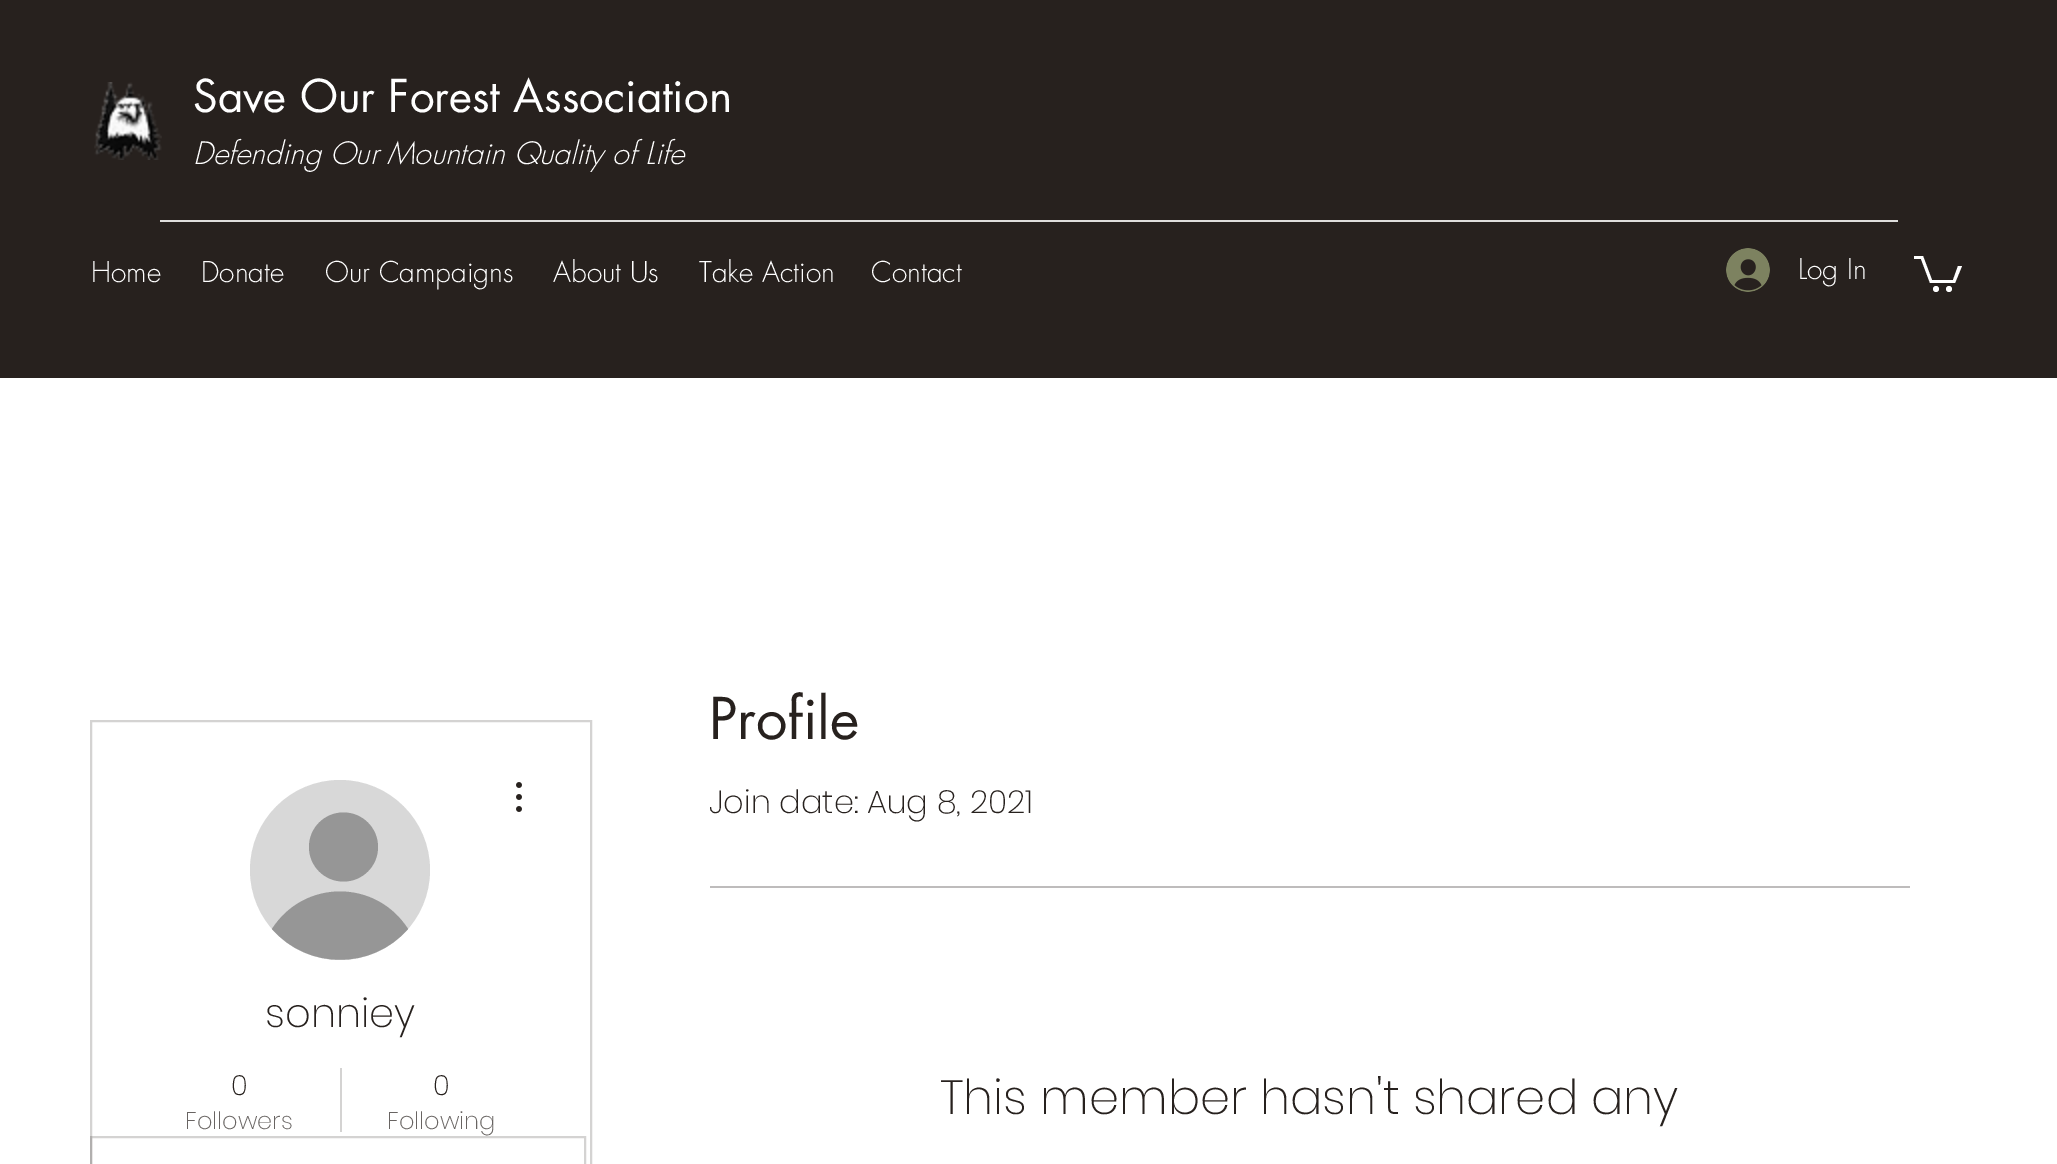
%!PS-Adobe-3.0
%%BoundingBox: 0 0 2057 1164
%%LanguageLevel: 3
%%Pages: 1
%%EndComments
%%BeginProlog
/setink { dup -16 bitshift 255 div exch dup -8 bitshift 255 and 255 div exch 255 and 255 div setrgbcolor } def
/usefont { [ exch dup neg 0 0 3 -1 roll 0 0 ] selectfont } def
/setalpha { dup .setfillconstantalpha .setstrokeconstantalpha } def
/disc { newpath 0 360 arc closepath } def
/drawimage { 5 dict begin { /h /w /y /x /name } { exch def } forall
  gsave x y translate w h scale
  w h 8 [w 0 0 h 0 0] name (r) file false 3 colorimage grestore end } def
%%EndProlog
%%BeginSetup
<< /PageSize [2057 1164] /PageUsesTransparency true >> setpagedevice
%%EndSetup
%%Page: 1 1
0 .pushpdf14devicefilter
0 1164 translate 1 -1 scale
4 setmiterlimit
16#FFFFFF setink
0 0 2057 1164 rectfill
16#27211E setink
0 0 2057 378 rectfill
(img1.raw) 94 82 68 78 drawimage
/futura-Regular 44 usefont
16#FFFFFF setink
193 112 moveto (Save Our Forest Association) show
/futura-LightItalic 30 usefont
193 164 moveto (Defending Our Mountain Quality of Life) show
16#DFDEDD setink
160 220 1738 2 rectfill
/futura-Light 28 usefont
16#FFFFFF setink
[
    [(Home) 91 282]
    [(Donate) 201 282]
    [(Our Campaigns) 325 282]
    [(About Us) 553 282]
    [(Take Action) 699 282]
    [(Contact) 871 282]
] { aload pop moveto show } forall
(img2.raw) 1726 248 44 44 drawimage
1798 279 moveto (Log In) show
1962 266 moveto 1955 283 lineto 1930 283 lineto 1921 259 lineto 1914 259 lineto 1914 256 lineto 1923 256 lineto 1932 280 lineto 1953 280 lineto 1958 266 lineto fill
1949 289 3 disc fill
1936 289 3 disc fill
16#D4D3D2 setink
2 setlinewidth
91 1137 494 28 rectstroke
0.2 setalpha
16#27211E setink
91 721 500 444 rectstroke
1 setalpha
16#D8D8D8 setink
340 870 90 disc fill
16#969696 setink
343.5 847 34.5 disc fill
408 929 moveto 372 970 308 970 272 929 curveto 304 879 376 879 408 929 curveto closepath fill
(img3.raw) 516 782 6 30 drawimage
/Poppins-ExtraLight 40 usefont
16#27211E setink
265 1027 moveto (sonniey) show
/Poppins-ExtraLight 28 usefont
231 1095 moveto (0) show
/Poppins-ExtraLight 24 usefont
16#686462 setink
185 1129 moveto (Followers) show
16#D4D3D2 setink
340 1068 2 64 rectfill
/Poppins-ExtraLight 28 usefont
16#27211E setink
433 1095 moveto (0) show
/Poppins-ExtraLight 24 usefont
16#686462 setink
387 1129 moveto (Following) show
/futura-Regular 56 usefont
16#27211E setink
709 739 moveto (Profile) show
/Poppins-ExtraLight 32 usefont
709 813 moveto (Join date: Aug 8, 2021) show
16#BEBCBC setink
710 886 1200 2 rectfill
/Poppins-ExtraLight 48 usefont
16#27211E setink
940 1114 moveto (This member hasn't shared any) show
.poppdf14devicefilter showpage
%%EOF
